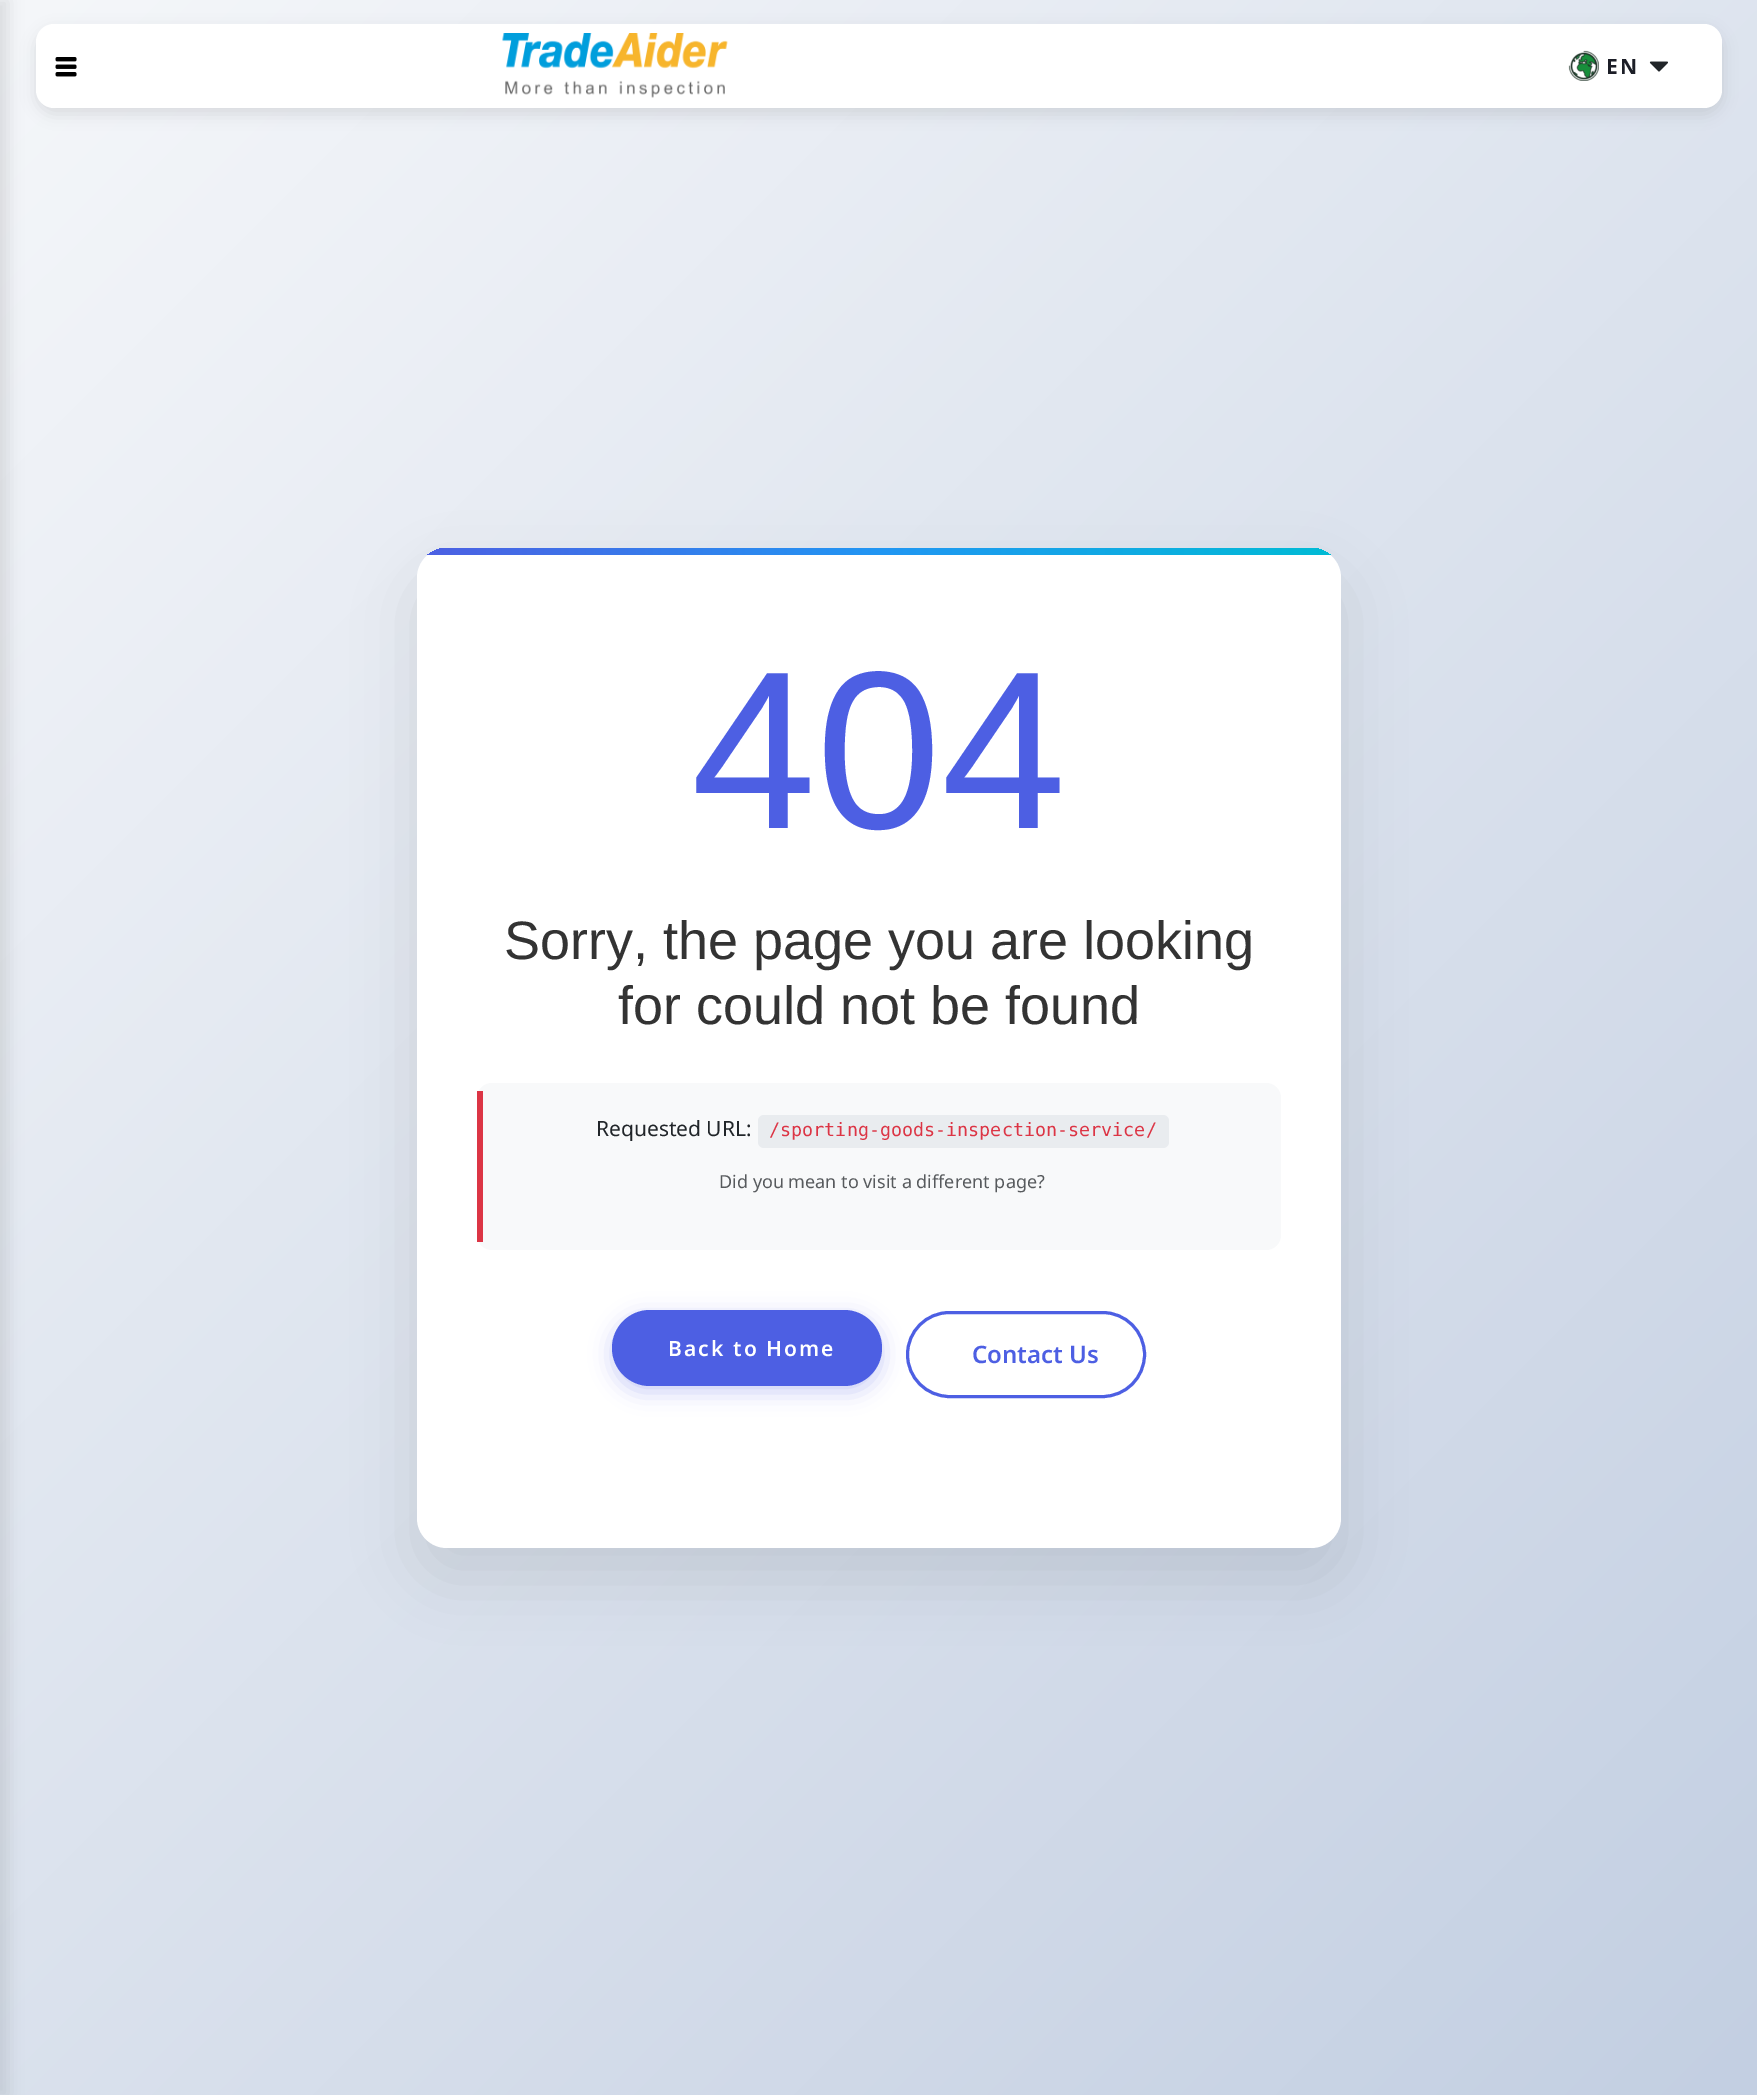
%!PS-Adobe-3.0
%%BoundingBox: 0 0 1757 2095
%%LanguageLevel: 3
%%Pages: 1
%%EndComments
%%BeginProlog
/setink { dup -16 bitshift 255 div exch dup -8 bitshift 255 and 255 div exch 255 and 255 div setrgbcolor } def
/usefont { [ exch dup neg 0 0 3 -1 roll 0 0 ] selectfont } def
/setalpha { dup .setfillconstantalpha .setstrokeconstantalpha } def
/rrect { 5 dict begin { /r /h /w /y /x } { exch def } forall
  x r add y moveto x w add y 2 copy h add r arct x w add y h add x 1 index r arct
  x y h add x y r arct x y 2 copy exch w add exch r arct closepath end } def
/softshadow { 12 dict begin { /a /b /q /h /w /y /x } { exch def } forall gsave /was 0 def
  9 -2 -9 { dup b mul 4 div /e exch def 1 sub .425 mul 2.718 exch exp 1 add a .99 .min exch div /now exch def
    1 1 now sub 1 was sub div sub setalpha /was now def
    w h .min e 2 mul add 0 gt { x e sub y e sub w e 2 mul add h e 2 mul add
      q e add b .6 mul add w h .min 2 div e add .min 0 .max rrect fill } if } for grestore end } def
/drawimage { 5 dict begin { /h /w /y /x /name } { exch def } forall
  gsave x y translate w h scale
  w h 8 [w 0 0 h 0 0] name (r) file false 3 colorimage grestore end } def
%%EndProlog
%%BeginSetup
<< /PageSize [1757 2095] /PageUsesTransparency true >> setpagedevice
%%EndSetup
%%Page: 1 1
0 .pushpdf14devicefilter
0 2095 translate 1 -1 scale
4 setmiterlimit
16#FFFFFF setink
0 0 1757 2095 rectfill
gsave 0 0 moveto 1757 0 lineto 1757 2095 lineto 0 2095 lineto closepath clip newpath
<< /ShadingType 2 /ColorSpace /DeviceRGB /Coords [-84 84 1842 2011] /Extend [true true] /Function << /FunctionType 2 /Domain [0 1] /C0 [0.961 0.969 0.98] /C1 [0.765 0.812 0.886] /N 1 >> >> shfill grestore
16#000000 setink
-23 0 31 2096 0 7.5 0.1 softshadow
36 30 1686 84 18 7.5 0.1 softshadow
16#FFFFFF setink
36 24 1686 84 18 rrect fill
(img1.raw) 55 57 22 20 drawimage
(img2.raw) 502 33 226 65 drawimage
(img3.raw) 1568 50 31 31 drawimage
/NotoSans-Bold 21 usefont
16#1C1E27 setink
1606 74 moveto 2.1 0 (EN) ashow
(img4.raw) 1649 61 19 11 drawimage
16#000000 setink
417 578 924 1000 30 30 0.1 softshadow
16#FFFFFF setink
417 548 924 1000 30 rrect fill
gsave
417 548 924 1000 30 rrect clip newpath
gsave 427 548 moveto 1331 548 lineto 1331 555 lineto 427 555 lineto closepath clip newpath
<< /ShadingType 2 /ColorSpace /DeviceRGB /Coords [417 551 1341 551] /Extend [true true] /Function << /FunctionType 3 /Domain [0 1] /Functions [<< /FunctionType 2 /Domain [0 1] /C0 [0.302 0.373 0.89] /C1 [0.129 0.588 0.953] /N 1 >> << /FunctionType 2 /Domain [0 1] /C0 [0.129 0.588 0.953] /C1 [0 0.737 0.831] /N 1 >>] /Bounds [0.5] /Encode [0 1 0 1] >> >> shfill grestore
grestore
/LiberationSans-Regular 225 usefont
16#4D5FE3 setink
691 828 moveto (404) show
/LiberationSans-Regular 54 usefont
16#333333 setink
504 959 moveto (Sorry, the page you are looking) show
618 1024 moveto (for could not be found) show
16#F8F9FA setink
477 1083 804 167 15 rrect fill
16#DC3545 setink
477 1091 6 151 rectfill
/NotoSans-Regular 21 usefont
16#212529 setink
596 1136 moveto (Requested URL:) show
16#E9ECEF setink
758 1115 411 33 6 rrect fill
/DejaVuSansMono-Regular 18.4 usefont
16#DC3545 setink
769 1136 moveto (/sporting-goods-inspection-service/) show
/NotoSans-Regular 18 usefont
16#575A5D setink
719 1188 moveto (Did you mean to visit a different page?) show
16#4D5FE3 setink
3 setlinewidth
907.5 1312.5 237 84 42 rrect stroke
612 1316 270 76 38 11 0.3 softshadow
612 1310 270 76 38 rrect fill
/NotoSans-SemiBold 21 usefont
16#FFFFFF setink
668 1356 moveto 2.1 0 (Back to Home) ashow
/NotoSans-SemiBold 24 usefont
16#4D5FE3 setink
972 1363 moveto (Contact Us) show
.poppdf14devicefilter showpage
%%EOF
